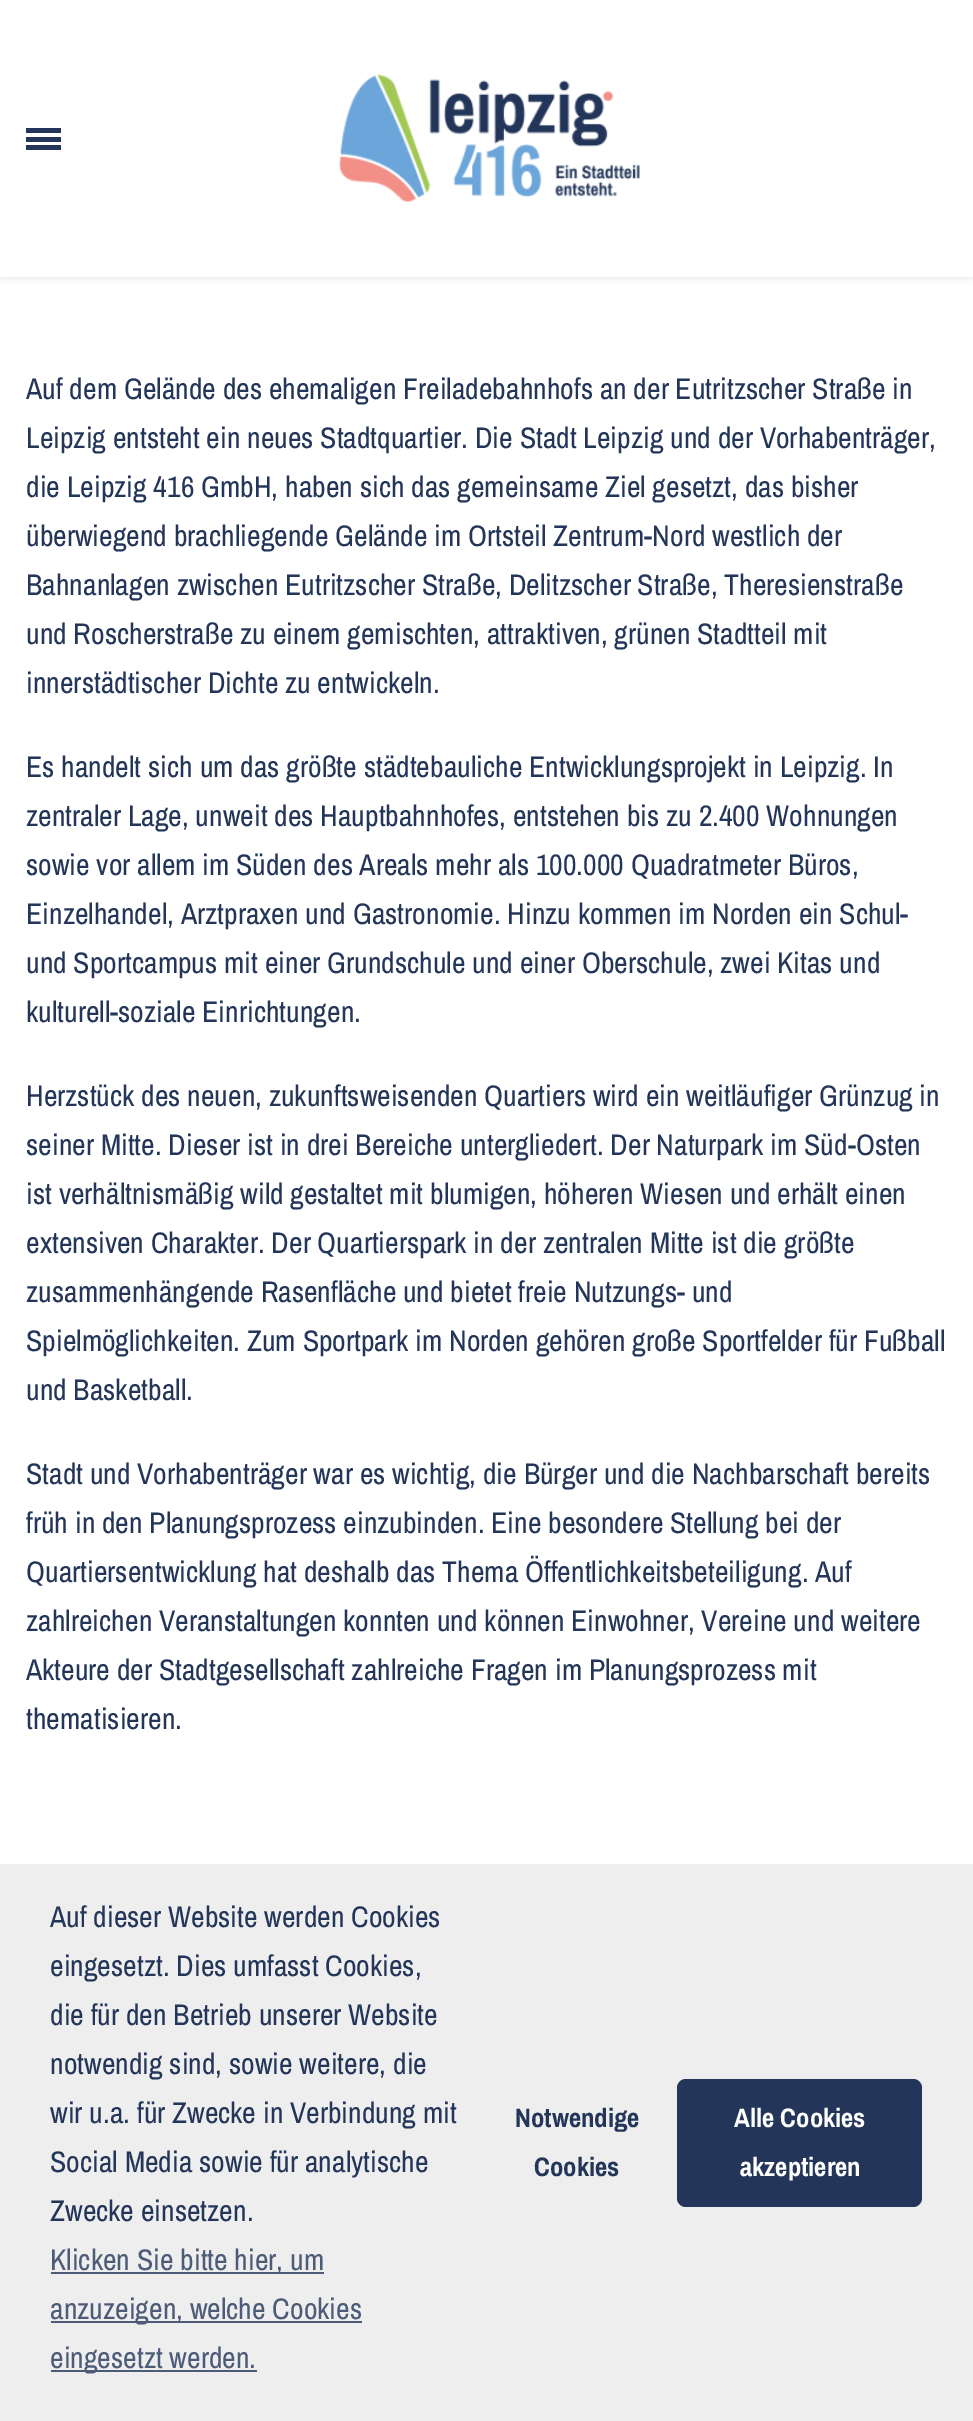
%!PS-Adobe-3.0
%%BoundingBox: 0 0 973 2421
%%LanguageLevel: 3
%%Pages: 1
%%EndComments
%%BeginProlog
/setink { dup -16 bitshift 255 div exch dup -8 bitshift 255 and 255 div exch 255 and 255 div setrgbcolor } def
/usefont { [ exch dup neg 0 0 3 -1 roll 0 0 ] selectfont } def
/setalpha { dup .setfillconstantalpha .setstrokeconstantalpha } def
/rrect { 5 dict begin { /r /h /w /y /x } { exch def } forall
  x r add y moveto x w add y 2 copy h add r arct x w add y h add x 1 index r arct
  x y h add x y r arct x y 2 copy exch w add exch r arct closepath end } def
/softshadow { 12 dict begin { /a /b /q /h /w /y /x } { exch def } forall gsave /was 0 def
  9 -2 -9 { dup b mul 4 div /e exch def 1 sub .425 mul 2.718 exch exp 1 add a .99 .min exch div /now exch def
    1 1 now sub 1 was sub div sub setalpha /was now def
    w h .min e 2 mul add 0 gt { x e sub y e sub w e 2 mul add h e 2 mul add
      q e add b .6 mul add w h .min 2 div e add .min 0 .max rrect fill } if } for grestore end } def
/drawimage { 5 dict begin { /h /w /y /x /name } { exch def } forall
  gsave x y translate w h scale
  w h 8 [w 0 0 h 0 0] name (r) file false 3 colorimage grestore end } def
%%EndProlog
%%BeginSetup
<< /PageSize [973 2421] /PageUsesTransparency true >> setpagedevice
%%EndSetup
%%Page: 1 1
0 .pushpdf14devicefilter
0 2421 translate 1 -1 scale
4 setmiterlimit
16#FFFFFF setink
0 0 973 2421 rectfill
[
    [26 128 35 5 16#23365A]
    [26 137 35 5 16#23365A]
    [26 145 35 5 16#23365A]
] { aload pop setink rectfill } forall
(img1.raw) 339 73 301 129 drawimage
gsave
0 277 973 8 rectclip
16#000000 setink
0 270 973 8 4 3.5 0.1 softshadow
grestore
/ArchivoNarrow-Regular 29.75 usefont
[
    [(Auf dem Gelände des ehemaligen Freiladebahnhofs an der Eutritzscher Straße in) 26 399]
    [(Leipzig entsteht ein neues Stadtquartier. Die Stadt Leipzig und der Vorhabenträger,) 26 448]
    [(die Leipzig 416 GmbH, haben sich das gemeinsame Ziel gesetzt, das bisher) 26 497]
    [(überwiegend brachliegende Gelände im Ortsteil Zentrum-Nord westlich der) 26 546]
    [(Bahnanlagen zwischen Eutritzscher Straße, Delitzscher Straße, Theresienstraße) 26 595]
    [(und Roscherstraße zu einem gemischten, attraktiven, grünen Stadtteil mit) 26 644]
    [(innerstädtischer Dichte zu entwickeln.) 26 693]
    [(Es handelt sich um das größte städtebauliche Entwicklungsprojekt in Leipzig. In) 26 777]
    [(zentraler Lage, unweit des Hauptbahnhofes, entstehen bis zu 2.400 Wohnungen) 26 826]
    [(sowie vor allem im Süden des Areals mehr als 100.000 Quadratmeter Büros,) 26 875]
    [(Einzelhandel, Arztpraxen und Gastronomie. Hinzu kommen im Norden ein Schul-) 26 924]
    [(und Sportcampus mit einer Grundschule und einer Oberschule, zwei Kitas und) 26 973]
    [(kulturell-soziale Einrichtungen.) 26 1022]
    [(Herzstück des neuen, zukunftsweisenden Quartiers wird ein weitläufiger Grünzug in) 26 1106]
    [(seiner Mitte. Dieser ist in drei Bereiche untergliedert. Der Naturpark im Süd-Osten) 26 1155]
    [(ist verhältnismäßig wild gestaltet mit blumigen, höheren Wiesen und erhält einen) 26 1204]
    [(extensiven Charakter. Der Quartierspark in der zentralen Mitte ist die größte) 26 1253]
    [(zusammenhängende Rasenfläche und bietet freie Nutzungs- und) 26 1302]
    [(Spielmöglichkeiten. Zum Sportpark im Norden gehören große Sportfelder für Fußball) 26 1351]
    [(und Basketball.) 26 1400]
    [(Stadt und Vorhabenträger war es wichtig, die Bürger und die Nachbarschaft bereits) 26 1484]
    [(früh in den Planungsprozess einzubinden. Eine besondere Stellung bei der) 26 1533]
    [(Quartiersentwicklung hat deshalb das Thema Öffentlichkeitsbeteiligung. Auf) 26 1582]
    [(zahlreichen Veranstaltungen konnten und können Einwohner, Vereine und weitere) 26 1631]
    [(Akteure der Stadtgesellschaft zahlreiche Fragen im Planungsprozess mit) 26 1680]
    [(thematisieren.) 26 1729]
] { aload pop moveto show } forall
16#EEEEEE setink
0 1864 973 557 rectfill
16#23365A setink
[
    [(Auf dieser Website werden Cookies) 50 1927]
    [(eingesetzt. Dies umfasst Cookies,) 50 1976]
    [(die für den Betrieb unserer Website) 50 2025]
    [(notwendig sind, sowie weitere, die) 50 2074]
    [(wir u.a. für Zwecke in Verbindung mit) 50 2123]
    [(Social Media sowie für analytische) 50 2172]
    [(Zwecke einsetzen.) 50 2221]
] { aload pop moveto show } forall
16#4C5B78 setink
51 2272 273 2 rectfill
50 2270 moveto (Klicken Sie bitte hier, um) show
51 2321 311 2 rectfill
50 2319 moveto (anzuzeigen, welche Cookies) show
51 2370 206 2 rectfill
50 2368 moveto (eingesetzt werden.) show
/ArchivoNarrow-Bold 26.75 usefont
16#23365A setink
515 2127 moveto (Notwendige) show
534 2176 moveto (Cookies) show
677 2079 245 128 9 rrect fill
16#FFFFFF setink
734 2127 moveto (Alle Cookies) show
740 2176 moveto (akzeptieren) show
.poppdf14devicefilter showpage
%%EOF
